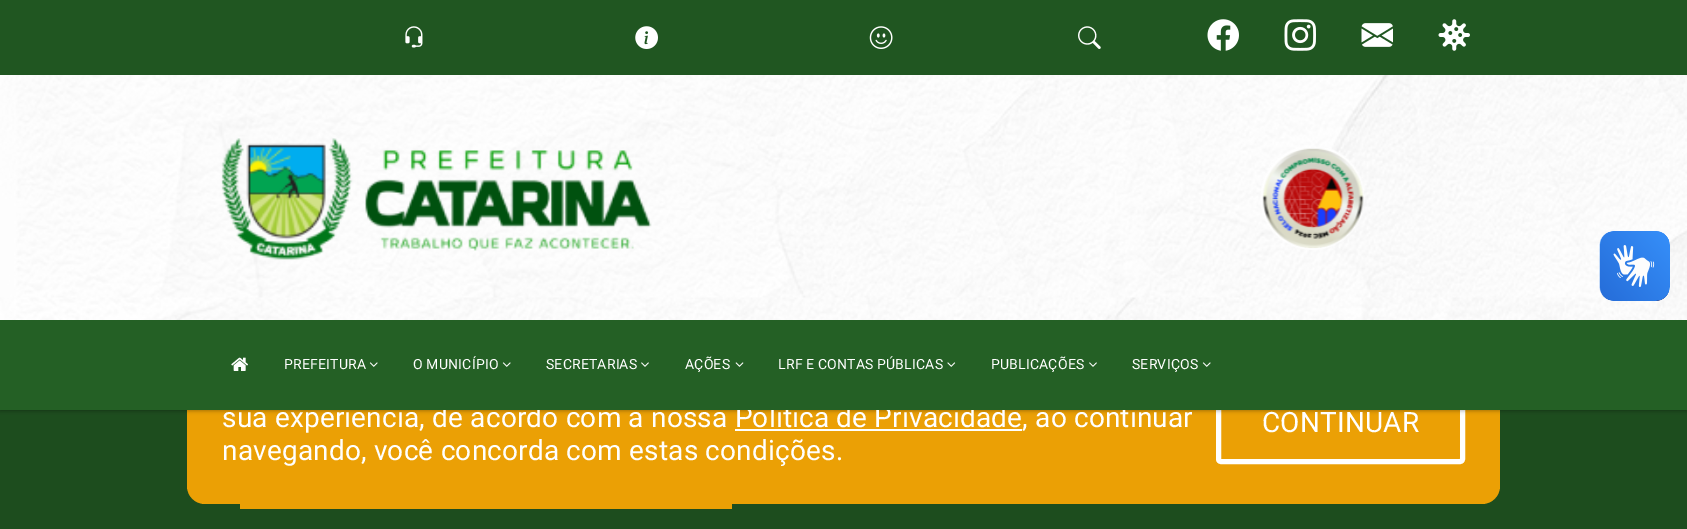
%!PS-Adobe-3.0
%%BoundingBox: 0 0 1687 529
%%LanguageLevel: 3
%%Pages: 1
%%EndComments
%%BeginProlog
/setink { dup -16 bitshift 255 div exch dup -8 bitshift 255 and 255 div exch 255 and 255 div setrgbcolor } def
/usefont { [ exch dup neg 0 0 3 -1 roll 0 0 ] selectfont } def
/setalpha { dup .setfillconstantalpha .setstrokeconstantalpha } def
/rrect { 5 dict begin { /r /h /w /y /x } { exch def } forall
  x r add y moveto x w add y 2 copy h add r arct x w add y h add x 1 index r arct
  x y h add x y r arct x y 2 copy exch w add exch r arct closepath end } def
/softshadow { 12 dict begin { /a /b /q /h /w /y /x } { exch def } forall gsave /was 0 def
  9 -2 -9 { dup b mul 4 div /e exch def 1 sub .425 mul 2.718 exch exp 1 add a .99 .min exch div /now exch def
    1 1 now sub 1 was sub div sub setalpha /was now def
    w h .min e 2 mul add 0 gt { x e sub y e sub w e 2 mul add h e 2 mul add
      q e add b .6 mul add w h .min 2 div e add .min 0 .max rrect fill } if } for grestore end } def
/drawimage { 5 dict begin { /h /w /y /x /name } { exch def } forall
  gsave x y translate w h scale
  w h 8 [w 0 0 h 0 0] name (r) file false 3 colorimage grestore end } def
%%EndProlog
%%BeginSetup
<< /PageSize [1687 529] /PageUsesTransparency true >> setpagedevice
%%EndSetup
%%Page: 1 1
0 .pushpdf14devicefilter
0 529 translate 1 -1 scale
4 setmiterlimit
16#1D4D1E setink
0 0 1687 529 rectfill
16#EBA005 setink
187 341 1313 163 18 rrect fill
16#FFFFFF setink
5 setlinewidth
1218.5 384.5 244 77 2.5 rrect stroke
16#000000 setink
0 2 1687 409 0 2 0.3 softshadow
(img3.raw) 0 75 1687 245 drawimage
(img1.raw) 1599 231 71 70 drawimage
(img2.raw) 1600 231 70 70 drawimage
16#205621 setink
0 0 1687 75 rectfill
(img4.raw) 405 26 18 22 drawimage
(img5.raw) 635 26 23 23 drawimage
(img6.raw) 869 26 24 23 drawimage
(img7.raw) 1078 26 23 23 drawimage
(img8.raw) 1207 19 32 32 drawimage
(img9.raw) 1284 19 32 32 drawimage
(img10.raw) 1361 23 32 24 drawimage
(img11.raw) 1438 19 32 32 drawimage
(img12.raw) 221 138 431 122 drawimage
(img13.raw) 1260 148 104 102 drawimage
/Roboto-Regular 28 usefont
16#FFFFFF setink
222 427 moveto 0.18 0 (sua experiência, de acordo com a nossa Política de Privacidade, ao continuar) ashow
16#246025 setink
0 320 1687 90 rectfill
(img14.raw) 231 357 17 14 drawimage
/Roboto-Regular 14 usefont
16#FFFFFF setink
284 369 moveto 0.18 0 (PREFEITURA) ashow
(img15.raw) 369 362 9 5 drawimage
413 369 moveto 0.18 0 (O MUNICÍPIO) ashow
(img15.raw) 502 362 9 5 drawimage
546 369 moveto 0.18 0 (SECRETARIAS) ashow
(img16.raw) 641 362 8 5 drawimage
685 369 moveto 0.18 0 (AÇÕES) ashow
(img17.raw) 735 362 9 5 drawimage
778 369 moveto 0.18 0 (LRF E CONTAS PÚBLICAS) ashow
(img18.raw) 947 362 9 5 drawimage
991 369 moveto 0.18 0 (PUBLICAÇÕES) ashow
(img16.raw) 1089 362 8 5 drawimage
1132 369 moveto 0.18 0 (SERVIÇOS) ashow
(img15.raw) 1202 362 9 5 drawimage
735 429 287 2 rectfill
/Roboto-Regular 28 usefont
222 460 moveto 0.18 0 (navegando, você concorda com estas condições.) ashow
1262 432 moveto 0.18 0 (CONTINUAR) ashow
16#EBA005 setink
240 504 492 5 rectfill
.poppdf14devicefilter showpage
%%EOF
